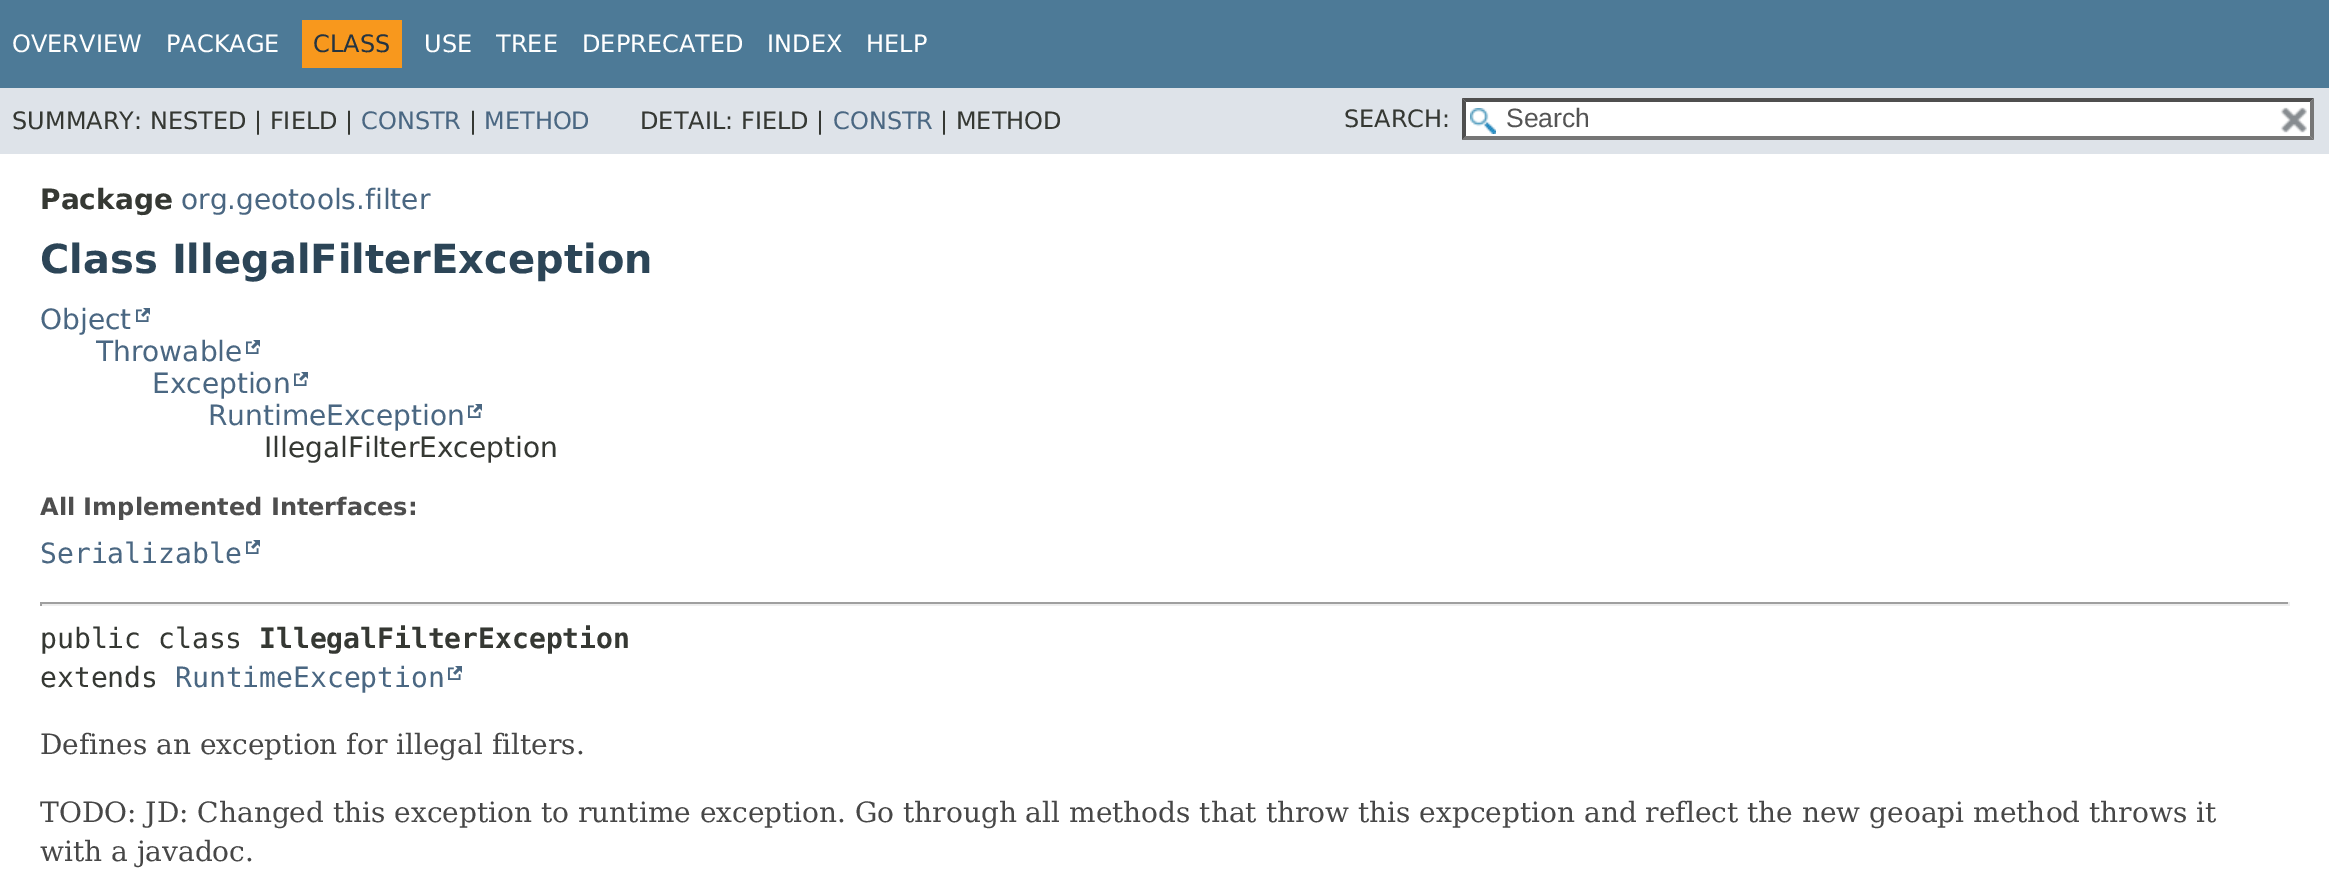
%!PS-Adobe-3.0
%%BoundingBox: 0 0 2329 878
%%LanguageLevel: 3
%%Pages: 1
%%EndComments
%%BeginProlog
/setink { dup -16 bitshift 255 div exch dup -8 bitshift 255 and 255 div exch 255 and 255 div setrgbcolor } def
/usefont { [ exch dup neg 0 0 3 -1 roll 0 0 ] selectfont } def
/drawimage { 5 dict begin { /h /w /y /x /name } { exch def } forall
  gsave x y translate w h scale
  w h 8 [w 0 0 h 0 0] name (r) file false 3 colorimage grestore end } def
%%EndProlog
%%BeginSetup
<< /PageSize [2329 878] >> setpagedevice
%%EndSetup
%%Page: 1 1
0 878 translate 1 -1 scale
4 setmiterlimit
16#FFFFFF setink
0 0 2329 878 rectfill
16#4D7A97 setink
0 0 2329 88 rectfill
/DejaVuSans-Regular 24 usefont
16#FFFFFF setink
12 52 moveto (OVERVIEW) show
166 52 moveto (PACKAGE) show
16#F8981D setink
302 20 100 48 rectfill
16#253441 setink
313 52 moveto (CLASS) show
16#FFFFFF setink
[
    [(USE) 424 52]
    [(TREE) 496 52]
    [(DEPRECATED) 582 52]
    [(INDEX) 767 52]
    [(HELP) 866 52]
] { aload pop moveto show } forall
16#DEE3E9 setink
0 88 2329 66 rectfill
16#353833 setink
12 129 moveto (SUMMARY: NESTED | FIELD |) show
16#4A6782 setink
361 129 moveto (CONSTR) show
16#353833 setink
469 129 moveto (|) show
16#4A6782 setink
484 129 moveto (METHOD) show
16#353833 setink
640 129 moveto (DETAIL: FIELD |) show
16#4A6782 setink
833 129 moveto (CONSTR) show
16#353833 setink
940 129 moveto (| METHOD) show
1344 127 moveto (SEARCH:) show
16#FFFFFF setink
1462 98 852 42 rectfill
(img1.raw) 1470 108 26 26 drawimage
16#4F4F4F setink
1462 98 moveto 2314 98 lineto 2310 102 lineto 1466 102 lineto closepath fill
16#767676 setink
2314 98 moveto 2314 140 lineto 2310 136 lineto 2310 102 lineto closepath fill
2314 140 moveto 1462 140 lineto 1466 136 lineto 2310 136 lineto closepath fill
16#4F4F4F setink
1462 140 moveto 1462 98 lineto 1466 102 lineto 1466 136 lineto closepath fill
/LiberationSans-Regular 26.5 usefont
16#545454 setink
1506 127 moveto (Search) show
(img2.raw) 2280 107 27 26 drawimage
/DejaVuSans-Bold 28 usefont
16#353833 setink
40 209 moveto (Package) show
/DejaVuSans-Regular 28 usefont
16#4A6782 setink
181 209 moveto (org.geotools.filter) show
/DejaVuSans-Bold 40 usefont
16#2C4557 setink
40 273 moveto (Class IllegalFilterException) show
/DejaVuSans-Regular 28 usefont
16#4A6782 setink
40 329 moveto (Object) show
(img3.raw) 136 308 14 14 drawimage
96 361 moveto (Throwable) show
(img3.raw) 246 340 14 14 drawimage
152 393 moveto (Exception) show
(img3.raw) 294 372 14 14 drawimage
208 425 moveto (RuntimeException) show
(img3.raw) 468 404 14 14 drawimage
16#353833 setink
264 457 moveto (IllegalFilterException) show
/DejaVuSans-Bold 24 usefont
16#4E4E4E setink
40 515 moveto (All Implemented Interfaces:) show
/DejaVuSansMono-Regular 28 usefont
16#4A6782 setink
40 563 moveto (Serializable) show
(img3.raw) 246 540 14 14 drawimage
[
    [40 602 2250 2 16#9F9F9F]
    [2288 602 2 4 16#EEEEEE]
    [40 604 2250 2 16#EEEEEE]
    [40 602 2 4 16#9F9F9F]
] { aload pop setink rectfill } forall
16#353833 setink
40 648 moveto (public class) show
/DejaVuSansMono-Bold 28 usefont
259 648 moveto (IllegalFilterException) show
/DejaVuSansMono-Regular 28 usefont
40 687 moveto (extends) show
16#4A6782 setink
175 687 moveto (RuntimeException) show
(img3.raw) 448 666 14 14 drawimage
/DejaVuSerif-Regular 28 usefont
16#474747 setink
[
    [(Defines an exception for illegal filters.) 40 754]
    [(TODO: JD: Changed this exception to runtime exception. Go through all methods that throw this expception and reflect the new geoapi method throws it) 40 822]
    [(with a javadoc.) 40 861]
] { aload pop moveto show } forall
showpage
%%EOF
